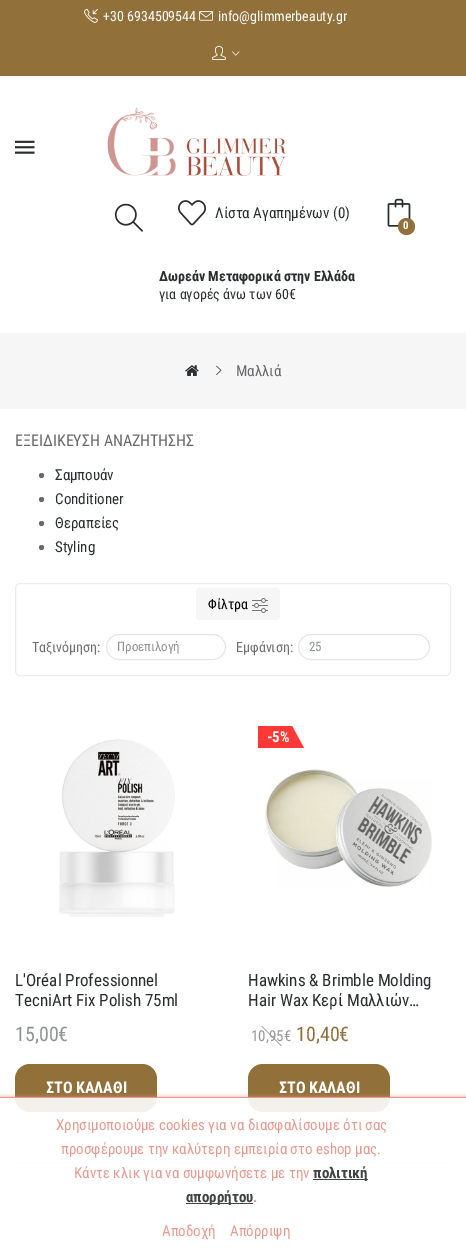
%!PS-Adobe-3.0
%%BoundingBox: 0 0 466 1248
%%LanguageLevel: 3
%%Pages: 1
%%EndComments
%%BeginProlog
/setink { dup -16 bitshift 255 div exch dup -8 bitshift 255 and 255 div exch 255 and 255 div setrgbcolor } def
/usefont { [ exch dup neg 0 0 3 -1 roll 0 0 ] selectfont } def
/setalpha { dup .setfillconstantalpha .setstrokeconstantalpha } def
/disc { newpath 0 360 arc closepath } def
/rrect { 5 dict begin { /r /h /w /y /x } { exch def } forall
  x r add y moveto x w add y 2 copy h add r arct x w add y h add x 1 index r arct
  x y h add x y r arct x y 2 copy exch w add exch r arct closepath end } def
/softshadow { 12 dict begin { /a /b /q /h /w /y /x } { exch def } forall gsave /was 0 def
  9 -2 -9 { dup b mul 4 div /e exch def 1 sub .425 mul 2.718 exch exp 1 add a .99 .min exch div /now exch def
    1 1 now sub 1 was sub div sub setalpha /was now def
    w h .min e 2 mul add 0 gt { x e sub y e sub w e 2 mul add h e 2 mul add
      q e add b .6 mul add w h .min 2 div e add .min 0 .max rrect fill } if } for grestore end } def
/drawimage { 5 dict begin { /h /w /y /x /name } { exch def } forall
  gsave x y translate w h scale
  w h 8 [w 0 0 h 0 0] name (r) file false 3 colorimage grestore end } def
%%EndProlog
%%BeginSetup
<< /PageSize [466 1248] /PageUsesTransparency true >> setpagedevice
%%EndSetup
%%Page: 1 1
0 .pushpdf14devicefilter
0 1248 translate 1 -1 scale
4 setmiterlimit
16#FFFFFF setink
0 0 466 1248 rectfill
16#91703A setink
0 0 466 76 rectfill
(img1.raw) 84 8 14 15 drawimage
/RobotoCondensed-Regular 14 usefont
16#FFFFFF setink
103 21 moveto (+30 6934509544) show
(img2.raw) 199 11 14 10 drawimage
218 21 moveto (info@glimmerbeauty.gr) show
(img3.raw) 212 45 14 15 drawimage
(img4.raw) 232 51 8 5 drawimage
(img5.raw) 15 140 20 14 drawimage
(img6.raw) 107 107 180 69 drawimage
(img7.raw) 114 203 29 29 drawimage
(img8.raw) 178 200 29 26 drawimage
/RobotoCondensed-Regular 15 usefont
16#2B2D2F setink
215 218 moveto (Λίστα Αγαπημένων \(0\)) show
(img9.raw) 387 198 24 29 drawimage
16#91703A setink
406.5 226.5 8.5 disc fill
/RobotoCondensed-Bold 11 usefont
16#FFFFFF setink
403 229 moveto (0) show
/RobotoCondensed-Bold 14 usefont
16#2B2D2F setink
159 281 moveto (Δωρεάν Μεταφορικά στην Ελλάδα) show
/RobotoCondensed-Regular 14 usefont
159 299 moveto (για αγορές άνω των 60€) show
16#F6F6F6 setink
0 333 466 76 rectfill
(img10.raw) 185 365 14 11 drawimage
(img11.raw) 216 365 6 10 drawimage
/RobotoCondensed-Regular 15 usefont
16#69696C setink
236 376 moveto (Μαλλιά) show
/RobotoCondensed-Regular 16 usefont
15 446 moveto (ΕΞΕΙΔΙΚΕΥΣΗ ΑΝΑΖΗΤΗΣΗΣ) show
41.5 475.5 2.5 disc fill
/RobotoCondensed-Regular 15 usefont
16#2B2D2F setink
55 480 moveto (Σαμπουάν) show
16#69696C setink
41.5 499.5 2.5 disc fill
16#2B2D2F setink
55 504 moveto (Conditioner) show
16#69696C setink
41.5 523.5 2.5 disc fill
16#2B2D2F setink
55 528 moveto (Θεραπείες) show
16#69696C setink
41.5 547.5 2.5 disc fill
16#2B2D2F setink
55 552 moveto (Styling) show
16#EDEDED setink
15.5 583.5 435 92 4.5 rrect stroke
16#F6F6F6 setink
196 588 84 32 4 rrect fill
/RobotoCondensed-Regular 14 usefont
16#000000 setink
208 609 moveto (Φίλτρα) show
(img12.raw) 252 598 16 15 drawimage
16#6F6F6F setink
32 652 moveto (Ταξινόμηση:) show
16#E6E6E6 setink
106.5 634.5 119 25 12.5 rrect stroke
/RobotoCondensed-Regular 13 usefont
16#909294 setink
117 651 moveto (Προεπιλογή) show
/RobotoCondensed-Regular 14 usefont
16#6F6F6F setink
236 652 moveto (Εμφάνιση:) show
16#E6E6E6 setink
298.5 634.5 131 25 12.5 rrect stroke
/RobotoCondensed-Regular 13 usefont
16#909294 setink
309 651 moveto (25) show
(img13.raw) 59 739 116 178 drawimage
/RobotoCondensed-Regular 17 usefont
16#2B2D2F setink
15 986 moveto (L'Oréal Professionnel) show
15 1006 moveto (TecniArt Fix Polish 75ml) show
/RobotoCondensed-Regular 20 usefont
16#909294 setink
15 1041 moveto (15,00€) show
16#91703A setink
15 1064 142 48 15 rrect fill
/RobotoCondensed-Bold 16 usefont
16#FFFFFF setink
46 1093 moveto (ΣΤΟ ΚΑΛΑΘΙ) show
16#FE3737 setink
258 726 34 22 rectfill
/RobotoCondensed-Bold 15 usefont
16#FFFFFF setink
267 742 moveto (-5%) show
16#FE3737 setink
304 748 moveto 292 748 lineto 298 737 lineto closepath fill
292 748 moveto 292 726 lineto 298 737 lineto closepath fill
(img14.raw) 265 769 167 118 drawimage
/RobotoCondensed-Regular 17 usefont
16#2B2D2F setink
248 986 moveto (Hawkins & Brimble Molding) show
248 1006 moveto (Hair Wax Κερί Μαλλιών…) show
16#969696 setink
261 1026 moveto 262 1026 lineto 282 1046 lineto 281 1046 lineto closepath fill
/RobotoCondensed-Regular 15 usefont
251 1041 moveto (10,95€) show
/RobotoCondensed-Regular 20 usefont
16#91703A setink
296 1041 moveto (10,40€) show
248 1064 142 48 15 rrect fill
/RobotoCondensed-Bold 16 usefont
16#FFFFFF setink
279 1093 moveto (ΣΤΟ ΚΑΛΑΘΙ) show
16#EDEDED setink
15 1162 436 1 rectfill
gsave
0 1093 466 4 rectclip
16#E39083 setink
-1 1097 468 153 0 2 0.9 softshadow
grestore
0.9 setalpha
16#FFFFFF setink
15 1097 436 66 rectfill
16#E39083 setink
0 1097 466 1 rectfill
/RobotoCondensed-Regular 15 usefont
1 setalpha
16#E69B8F setink
[
    [(Χρησιμοποιούμε cookies για να διασφαλίσουμε ότι σας) 56 1130]
    [(προσφέρουμε την καλύτερη εμπειρία στο eshop μας.) 61 1154]
    [(Κάντε κλικ για να συμφωνήσετε με την) 74 1178]
] { aload pop moveto show } forall
16#404244 setink
313 1179 55 1 rectfill
/RobotoCondensed-Bold 15 usefont
313 1178 moveto (πολιτική) show
186 1203 67 1 rectfill
186 1202 moveto (απορρήτου) show
16#E69B8F setink
253 1202 moveto (.) show
/RobotoCondensed-Regular 15 usefont
162 1236 moveto (Αποδοχή) show
230 1236 moveto (Απόρριψη) show
.poppdf14devicefilter showpage
%%EOF
